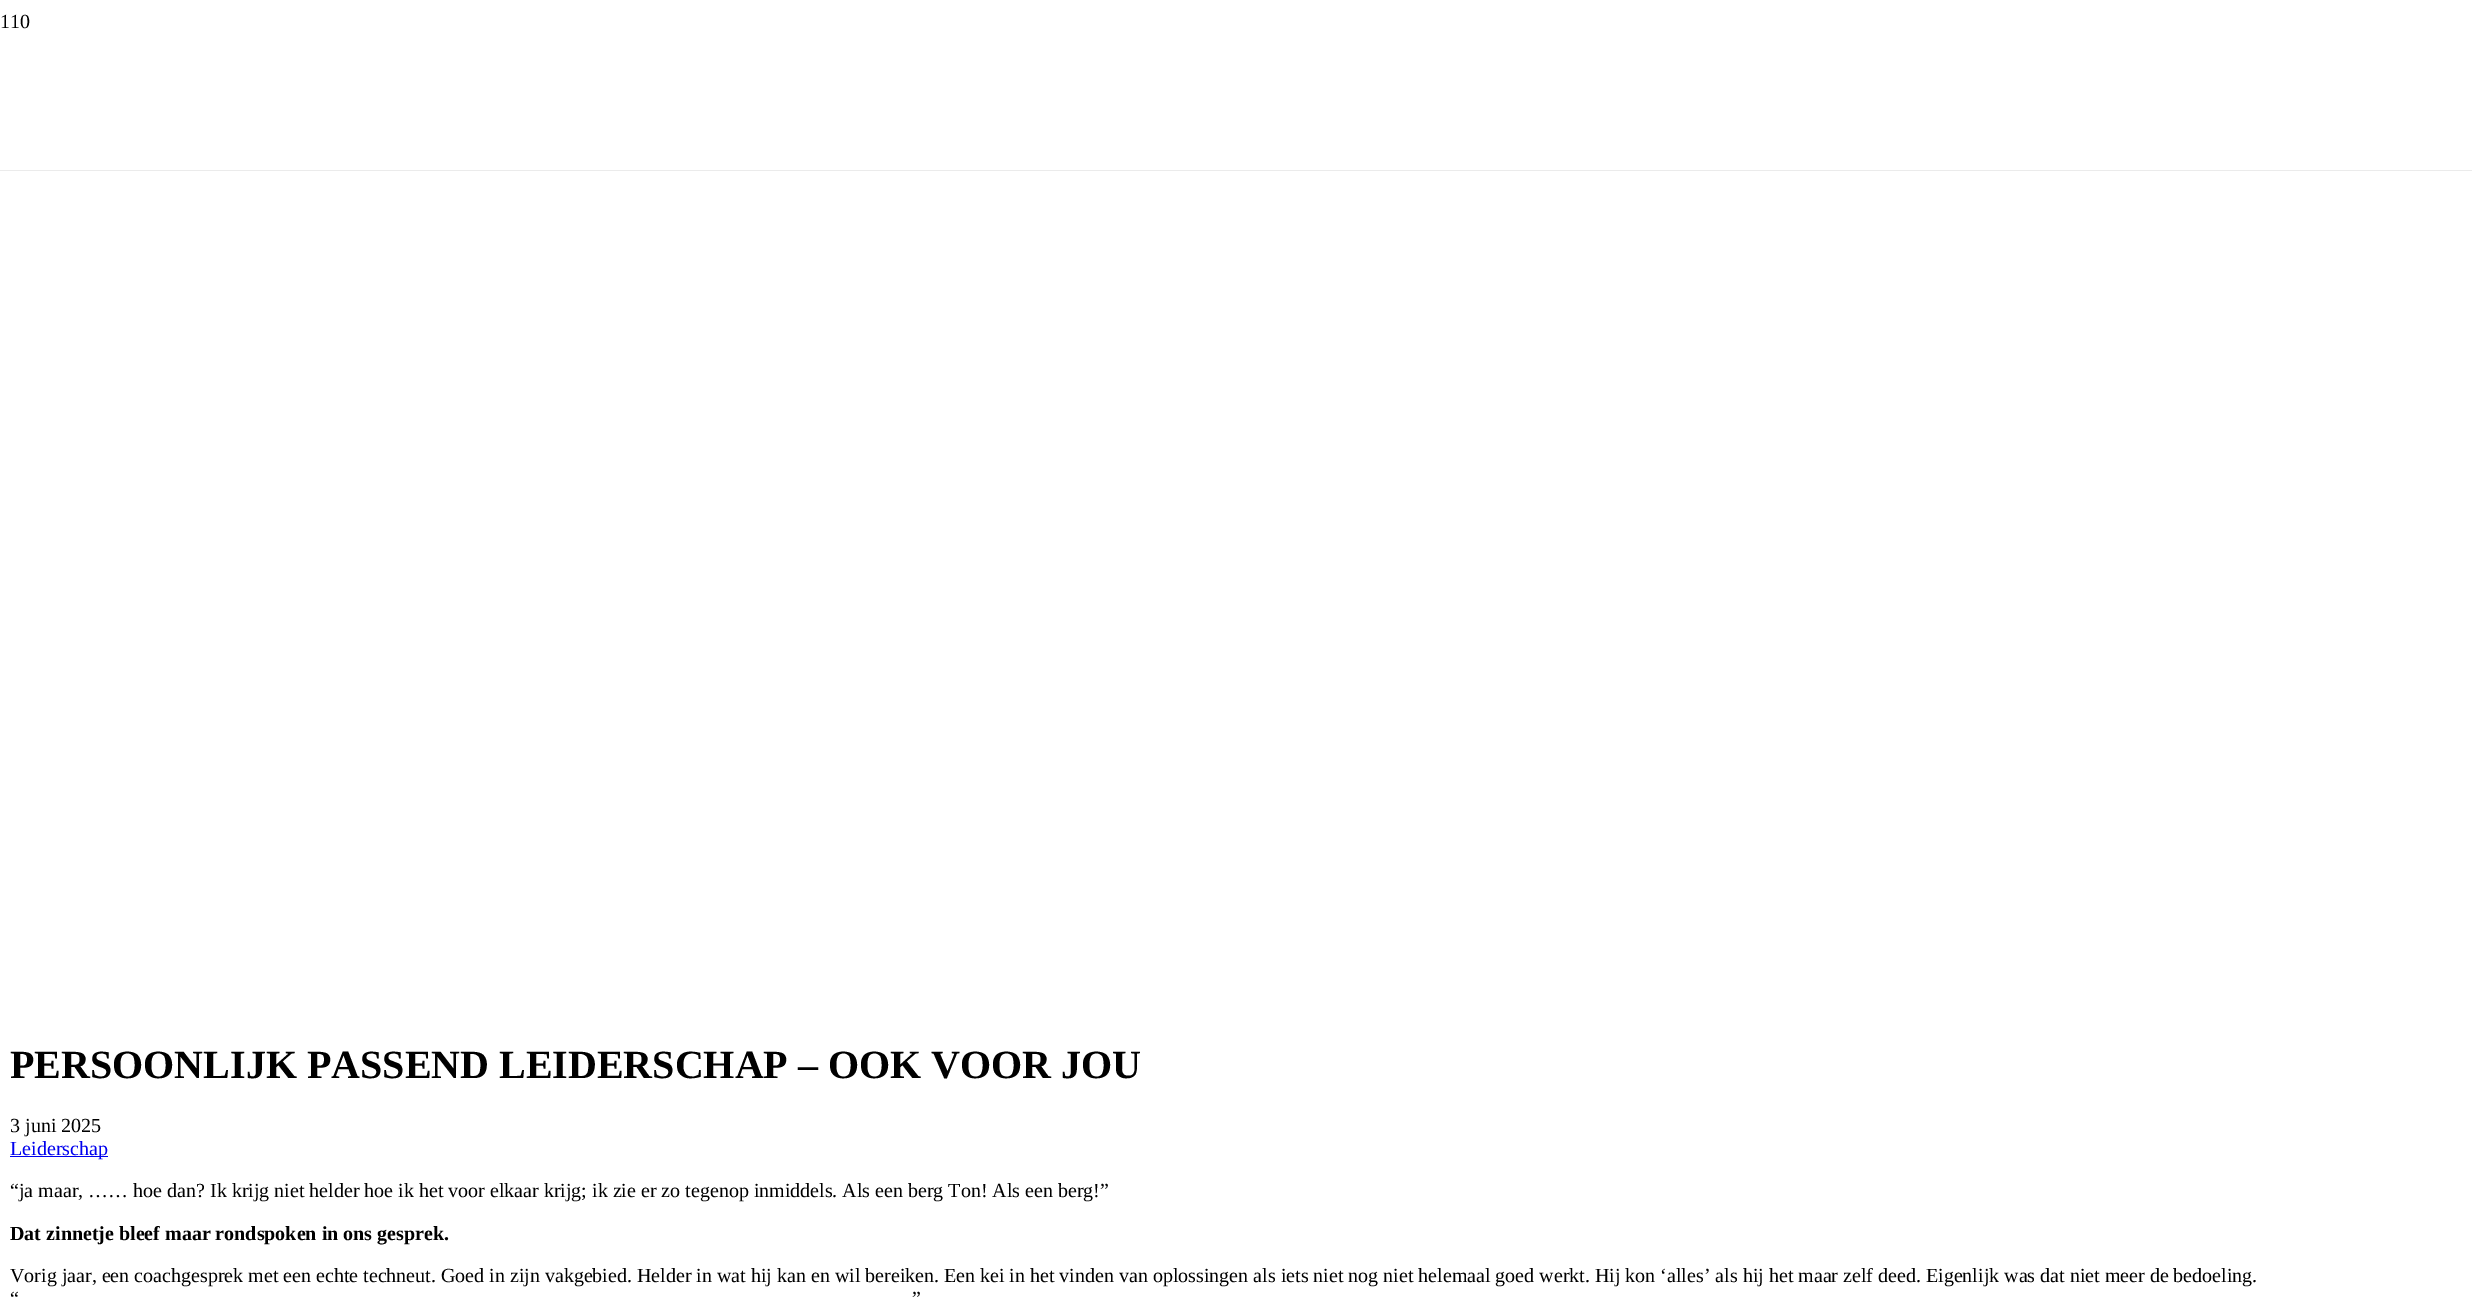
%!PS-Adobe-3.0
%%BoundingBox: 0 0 2472 1297
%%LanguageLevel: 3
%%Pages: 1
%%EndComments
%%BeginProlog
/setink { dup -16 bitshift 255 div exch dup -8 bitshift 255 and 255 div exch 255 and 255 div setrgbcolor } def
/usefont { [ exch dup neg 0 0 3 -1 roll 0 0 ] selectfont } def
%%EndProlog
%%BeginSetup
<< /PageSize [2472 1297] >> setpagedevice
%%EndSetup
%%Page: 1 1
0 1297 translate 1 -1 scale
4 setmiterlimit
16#FFFFFF setink
0 0 2472 1297 rectfill
/LiberationSerif-Regular 20 usefont
16#000000 setink
0 28 moveto (110) show
16#EBEBEB setink
0 170 moveto 0 171 lineto 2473 171 lineto 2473 34 lineto 2472 34 lineto 2472 170 lineto closepath fill
/LiberationSerif-Bold 40 usefont
16#000000 setink
10 1078 moveto (PERSOONLIJK PASSEND LEIDERSCHAP – OOK VOOR JOU) show
/LiberationSerif-Regular 20 usefont
10 1132 moveto (3 juni 2025) show
16#0000EE setink
10 1156 98 1 rectfill
10 1155 moveto (Leiderschap) show
16#000000 setink
10 1197 moveto (“ja maar, …… hoe dan? Ik krijg niet helder hoe ik het voor elkaar krijg; ik zie er zo tegenop inmiddels. Als een berg Ton! Als een berg!”) show
/LiberationSerif-Bold 20 usefont
10 1240 moveto (Dat zinnetje bleef maar rondspoken in ons gesprek.) show
/LiberationSerif-Regular 20 usefont
[
    [(Vorig jaar, een coachgesprek met een echte techneut. Goed in zijn vakgebied. Helder in wat hij kan en wil bereiken. Een kei in het vinden van oplossingen als iets niet nog niet helemaal goed werkt. Hij kon ‘alles’ als hij het maar zelf deed. Eigenlijk was dat niet meer de bedoeling.) 10 1282]
    [(“) 10 1305]
    [(”) 912 1305]
] { aload pop moveto show } forall
showpage
%%EOF
